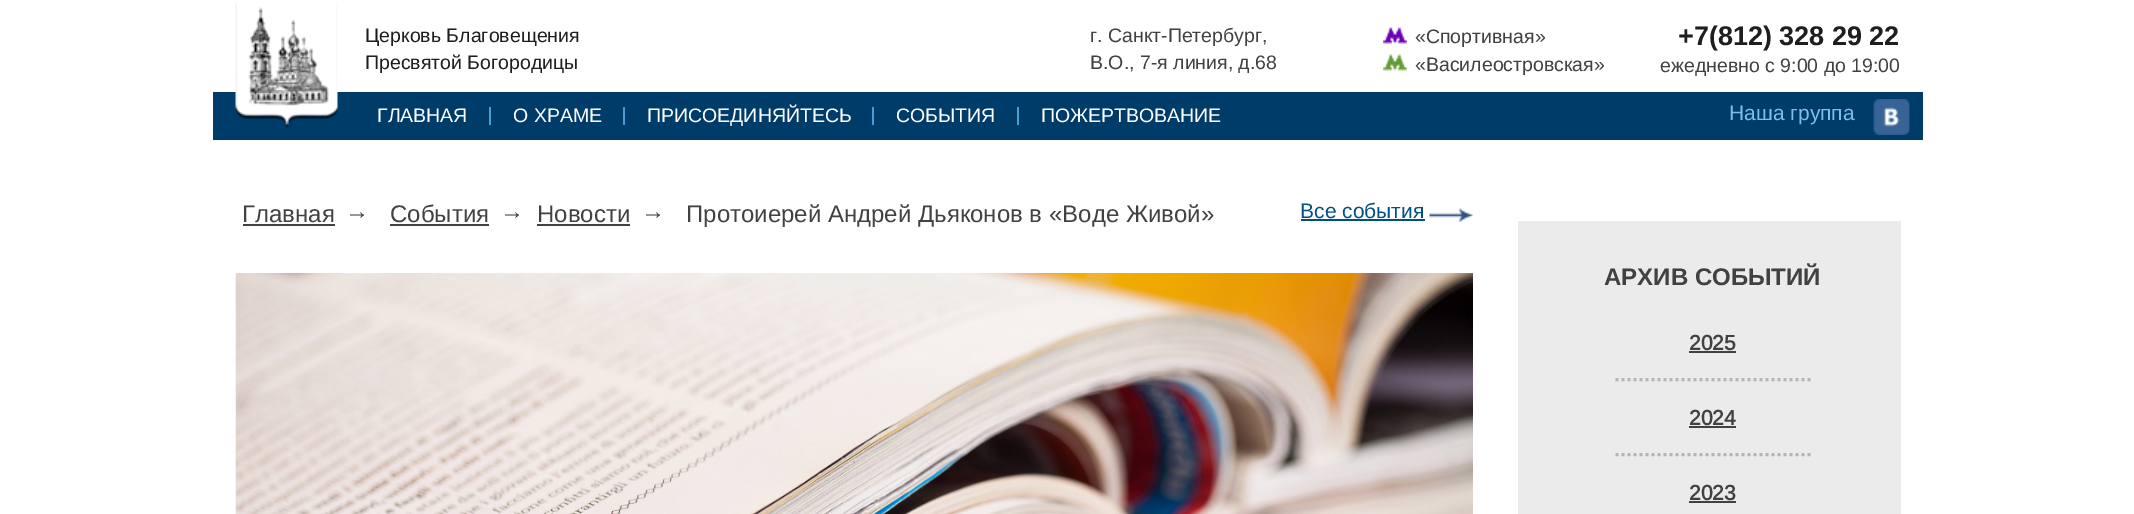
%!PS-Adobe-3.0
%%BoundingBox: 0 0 2134 514
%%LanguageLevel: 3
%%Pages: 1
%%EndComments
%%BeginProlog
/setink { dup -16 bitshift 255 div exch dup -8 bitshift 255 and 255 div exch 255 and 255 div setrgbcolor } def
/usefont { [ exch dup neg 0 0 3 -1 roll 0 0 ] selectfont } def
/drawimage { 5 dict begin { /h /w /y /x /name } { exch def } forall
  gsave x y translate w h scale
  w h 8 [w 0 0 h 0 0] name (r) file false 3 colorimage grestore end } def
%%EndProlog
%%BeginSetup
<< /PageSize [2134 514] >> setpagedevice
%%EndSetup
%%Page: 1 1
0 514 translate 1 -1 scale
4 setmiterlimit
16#FFFFFF setink
0 0 2134 514 rectfill
16#003C6A setink
213 92 1710 48 rectfill
(img1.raw) 235 3 103 125 drawimage
/Arimo-Regular 19.5 usefont
16#1E1E1E setink
365 42 moveto (Церковь Благовещения) show
365 69 moveto (Пресвятой Богородицы) show
16#414141 setink
1090 42 moveto (г. Санкт-Петербург,) show
1090 69 moveto (В.О., 7-я линия, д.68) show
(img2.raw) 1383 27 24 17 drawimage
1415 43 moveto («Спортивная») show
(img3.raw) 1383 54 24 17 drawimage
1415 71 moveto («Василеостровская») show
/Arimo-Bold 27 usefont
16#1E1E1E setink
1678 45 moveto (+7\(812\) 328 29 22) show
/Arimo-Regular 19.5 usefont
16#414141 setink
1660 72 moveto (ежедневно с 9:00 до 19:00) show
16#FFFFFF setink
377 122 moveto (ГЛАВНАЯ) show
16#4A9CD5 setink
489 107 2 18 rectfill
16#FFFFFF setink
513 122 moveto (О ХРАМЕ) show
16#4A9CD5 setink
623 107 2 18 rectfill
16#FFFFFF setink
647 122 moveto (ПРИСОЕДИНЯЙТЕСЬ) show
16#4A9CD5 setink
872 107 2 18 rectfill
16#FFFFFF setink
896 122 moveto (СОБЫТИЯ) show
16#4A9CD5 setink
1017 107 2 18 rectfill
16#FFFFFF setink
1041 122 moveto (ПОЖЕРТВОВАНИЕ) show
/Arimo-Regular 21 usefont
16#84BCE7 setink
1729 120 moveto (Наша группа) show
(img4.raw) 1873 99 37 36 drawimage
/Arimo-Regular 24 usefont
16#414141 setink
242 222 moveto (Главная) show
243 224 92 2 rectfill
345 219 moveto (→) show
390 222 moveto (События) show
390 224 99 2 rectfill
500 219 moveto (→) show
537 222 moveto (Новости) show
537 224 93 2 rectfill
641 219 moveto (→) show
686 222 moveto (Протоиерей Андрей Дьяконов в «Воде Живой») show
/Arimo-Regular 21 usefont
16#014F84 setink
1300 218 moveto (Все события) show
1301 219 124 2 rectfill
(img5.raw) 1429 208 44 14 drawimage
(img6.raw) 235 273 1238 241 drawimage
16#EBEBEB setink
1518 221 383 293 rectfill
/Arimo-Bold 24 usefont
16#414141 setink
1604 285 moveto (АРХИВ СОБЫТИЙ) show
16#B5B5B5 setink
3 setlinewidth
[3 3] 0 setdash
1615.5 379.5 moveto 1810.5 379.5 lineto stroke
/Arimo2-Bold 21 usefont
16#414141 setink
1689 350 moveto (2025) show
1689 351 47 2 rectfill
16#B5B5B5 setink
1615.5 454.5 moveto 1810.5 454.5 lineto stroke
16#414141 setink
1689 425 moveto (2024) show
1689 426 47 2 rectfill
1689 500 moveto (2023) show
1689 501 47 2 rectfill
showpage
%%EOF
